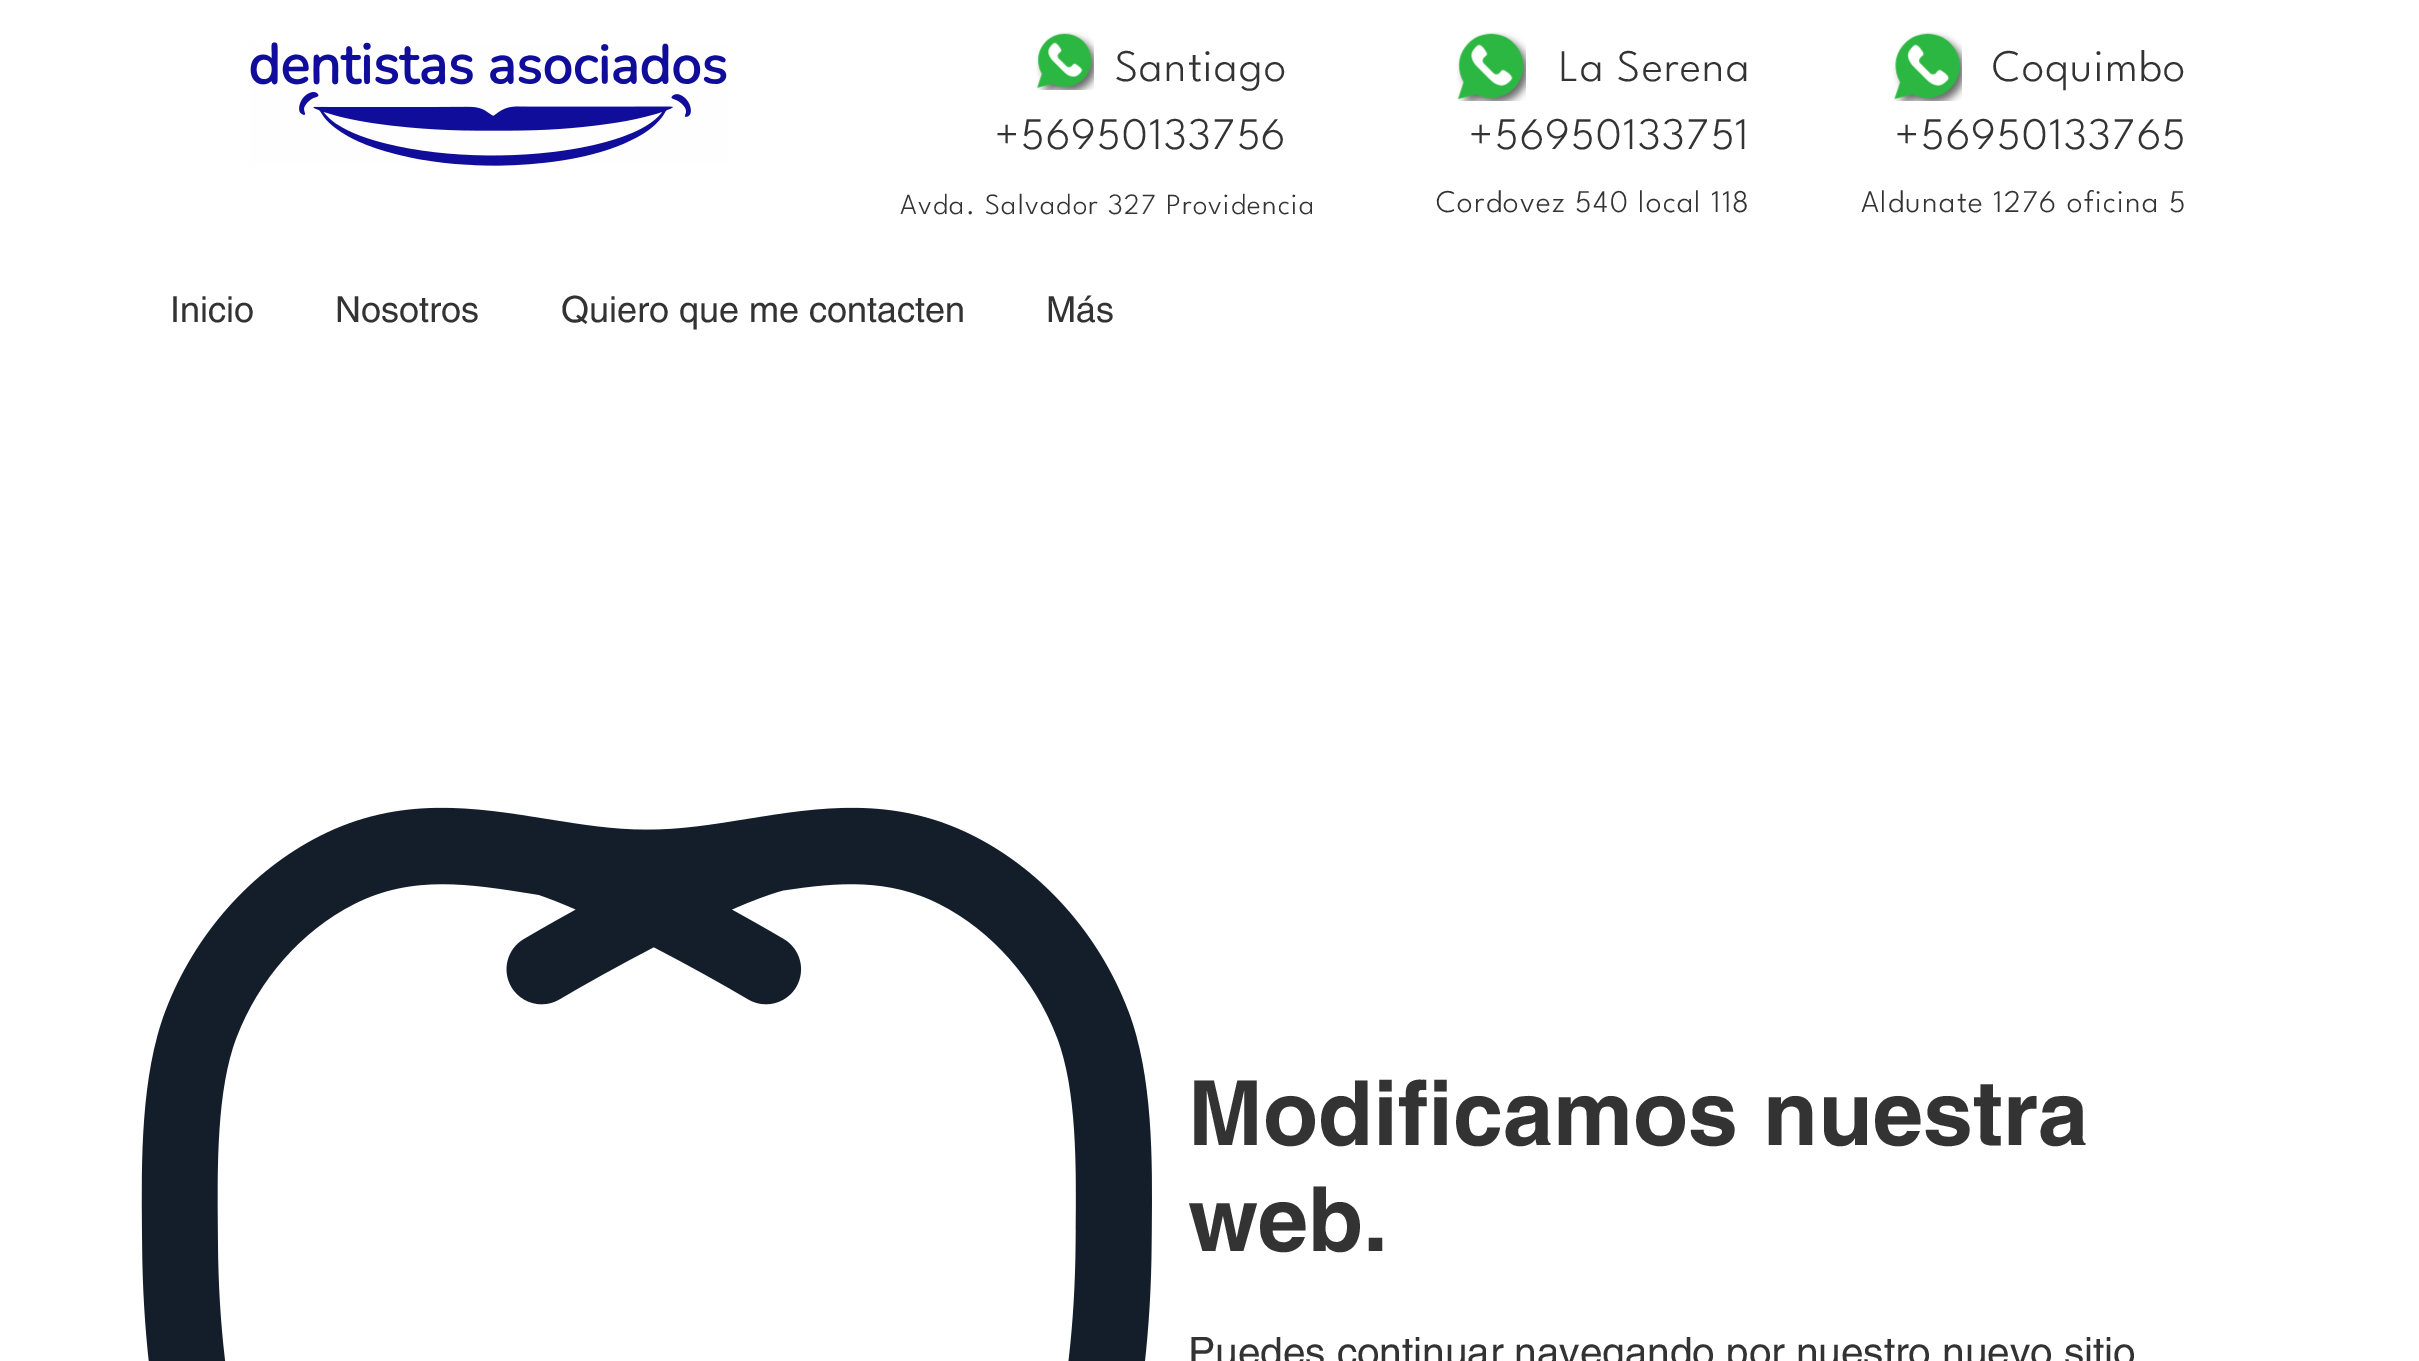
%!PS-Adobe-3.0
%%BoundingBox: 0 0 2419 1361
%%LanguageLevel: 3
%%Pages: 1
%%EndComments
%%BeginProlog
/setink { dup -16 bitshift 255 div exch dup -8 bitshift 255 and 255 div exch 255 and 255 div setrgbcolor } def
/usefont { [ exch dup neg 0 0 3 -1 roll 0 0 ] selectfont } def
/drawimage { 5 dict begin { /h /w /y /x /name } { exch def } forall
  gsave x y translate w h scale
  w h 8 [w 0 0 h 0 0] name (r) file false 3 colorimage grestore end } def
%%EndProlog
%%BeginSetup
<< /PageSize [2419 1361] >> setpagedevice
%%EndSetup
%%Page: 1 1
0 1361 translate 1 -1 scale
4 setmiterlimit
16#FFFFFF setink
0 0 2419 1361 rectfill
(img1.raw) 250 42 477 124 drawimage
(img2.raw) 1036 32 58 58 drawimage
/LeagueSpartan-Thin 45 usefont
16#333333 setink
1115 81 moveto 1.35 0 (Santiago) ashow
995 149 moveto 1.35 0 (+56950133756) ashow
/LeagueSpartan-Thin 29.25 usefont
900 214 moveto 1.35 0 (Avda. Salvador 327 Providencia) ashow
(img3.raw) 1457 32 69 69 drawimage
/LeagueSpartan-Thin 45 usefont
1559 81 moveto 1.35 0 (La Serena) ashow
1469 149 moveto 1.35 0 (+56950133751) ashow
/LeagueSpartan-Thin 31.5 usefont
1436 212 moveto 1.35 0 (Cordovez 540 local 118) ashow
(img4.raw) 1893 32 69 69 drawimage
/LeagueSpartan-Thin 45 usefont
1992 81 moveto 1.35 0 (Coquimbo) ashow
1895 149 moveto 1.35 0 (+56950133765) ashow
/LeagueSpartan-Thin 31.5 usefont
1861 212 moveto 1.35 0 (Aldunate 1276 oficina 5) ashow
/helvetica-Regular 36 usefont
[
    [(Inicio) 170 322]
    [(Nosotros) 335 322]
    [(Quiero que me contacten) 561 322]
    [(Más) 1046 322]
] { aload pop moveto show } forall
(img5.raw) 141 807 1011 554 drawimage
/helvetica-Bold 90 usefont
1188 1145 moveto (Modificamos nuestra) show
1188 1251 moveto (web.) show
/helvetica-Regular 40.5 usefont
1188 1366 moveto (Puedes continuar navegando por nuestro nuevo sitio) show
showpage
%%EOF
